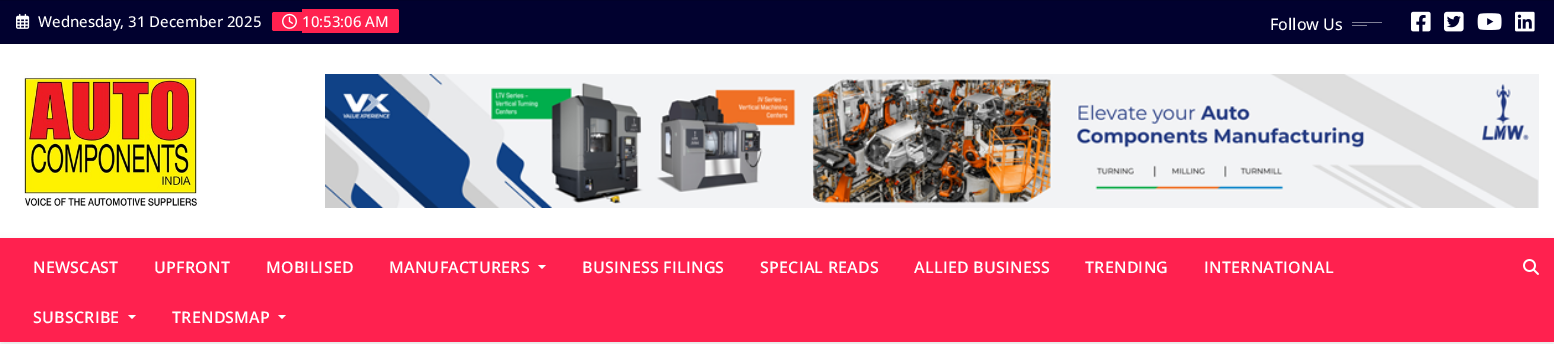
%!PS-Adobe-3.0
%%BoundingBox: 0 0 1554 344
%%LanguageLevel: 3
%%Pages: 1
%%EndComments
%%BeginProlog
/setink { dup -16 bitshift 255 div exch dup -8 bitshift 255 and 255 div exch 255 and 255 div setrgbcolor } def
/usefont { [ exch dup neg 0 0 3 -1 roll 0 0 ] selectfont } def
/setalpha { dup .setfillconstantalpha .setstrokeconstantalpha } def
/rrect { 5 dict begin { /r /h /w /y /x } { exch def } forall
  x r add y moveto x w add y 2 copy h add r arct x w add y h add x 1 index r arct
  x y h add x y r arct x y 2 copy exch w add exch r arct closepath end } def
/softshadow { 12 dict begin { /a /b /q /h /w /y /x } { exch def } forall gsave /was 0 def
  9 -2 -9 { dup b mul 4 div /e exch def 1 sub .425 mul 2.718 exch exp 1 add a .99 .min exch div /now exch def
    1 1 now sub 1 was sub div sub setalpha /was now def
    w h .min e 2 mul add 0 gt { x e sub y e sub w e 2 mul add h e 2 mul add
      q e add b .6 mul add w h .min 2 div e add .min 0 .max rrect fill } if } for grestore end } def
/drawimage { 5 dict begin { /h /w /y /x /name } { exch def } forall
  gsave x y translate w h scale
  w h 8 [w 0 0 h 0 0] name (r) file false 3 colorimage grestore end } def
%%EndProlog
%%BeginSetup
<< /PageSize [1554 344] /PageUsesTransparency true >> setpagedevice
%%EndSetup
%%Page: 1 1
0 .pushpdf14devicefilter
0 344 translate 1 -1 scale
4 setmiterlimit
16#FFFFFF setink
0 0 1554 344 rectfill
[
    [0 1 1554 42 16#01012F]
    [0 0 1554 1 16#01012A]
    [0 43 1554 1 16#01012A]
] { aload pop setink rectfill } forall
(img1.raw) 16 13 14 16 drawimage
/OpenSans-Medium 15 usefont
16#FFFFFF setink
38 27 moveto (Wednesday, 31 December 2025) show
16#FF214F setink
274 12 moveto 302 12 lineto 302 31 lineto 274 31 lineto 273 31 272 30 272 29 curveto 272 14 lineto 272 13 273 12 274 12 curveto closepath fill
(img2.raw) 282 13 15 16 drawimage
302 9 moveto 397 9 lineto 398 9 399 10 399 11 curveto 399 31 lineto 399 32 398 33 397 33 curveto 302 33 lineto closepath fill
16#FFFFFF setink
302 27 moveto (10:53:06 AM) show
/OpenSans-Medium 16 usefont
1270 30 moveto (Follow Us) show
16#808097 setink
1352 22 30 1 rectfill
1352 25 15 1 rectfill
(img3.raw) 1411 11 20 21 drawimage
(img4.raw) 1444 11 20 21 drawimage
(img5.raw) 1477 13 25 17 drawimage
(img6.raw) 1515 11 20 21 drawimage
(img7.raw) 24 75 176 132 drawimage
(img8.raw) 325 74 1214 134 drawimage
16#000000 setink
0 243 1554 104 0 5 0.1 softshadow
16#FF214F setink
0 238 1554 104 rectfill
/OpenSans-SemiBold 16 usefont
16#FFFFFF setink
33 273 moveto 0.2 0 (NEWSCAST) ashow
154 273 moveto 0.2 0 (UPFRONT) ashow
266 273 moveto 0.2 0 (MOBILISED) ashow
389 273 moveto 0.2 0 (MANUFACTURERS) ashow
538 265 moveto 546 265 lineto 542 269 lineto closepath fill
582 273 moveto 0.2 0 (BUSINESS FILINGS) ashow
760 273 moveto 0.2 0 (SPECIAL READS) ashow
914 273 moveto 0.2 0 (ALLIED BUSINESS) ashow
1085 273 moveto 0.2 0 (TRENDING) ashow
1204 273 moveto 0.2 0 (INTERNATIONAL) ashow
33 323 moveto 0.2 0 (SUBSCRIBE) ashow
128 315 moveto 136 315 lineto 132 319 lineto closepath fill
172 323 moveto 0.2 0 (TRENDSMAP) ashow
278 315 moveto 286 315 lineto 282 319 lineto closepath fill
(img9.raw) 1523 259 16 16 drawimage
.poppdf14devicefilter showpage
%%EOF
